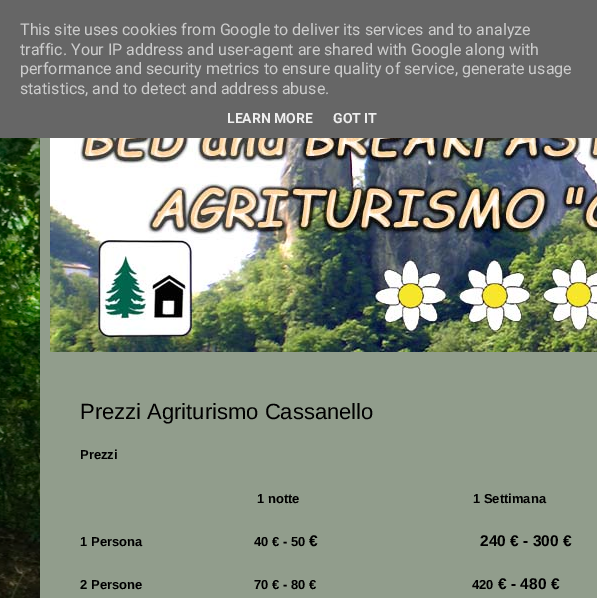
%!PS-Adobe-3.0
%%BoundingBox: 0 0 597 598
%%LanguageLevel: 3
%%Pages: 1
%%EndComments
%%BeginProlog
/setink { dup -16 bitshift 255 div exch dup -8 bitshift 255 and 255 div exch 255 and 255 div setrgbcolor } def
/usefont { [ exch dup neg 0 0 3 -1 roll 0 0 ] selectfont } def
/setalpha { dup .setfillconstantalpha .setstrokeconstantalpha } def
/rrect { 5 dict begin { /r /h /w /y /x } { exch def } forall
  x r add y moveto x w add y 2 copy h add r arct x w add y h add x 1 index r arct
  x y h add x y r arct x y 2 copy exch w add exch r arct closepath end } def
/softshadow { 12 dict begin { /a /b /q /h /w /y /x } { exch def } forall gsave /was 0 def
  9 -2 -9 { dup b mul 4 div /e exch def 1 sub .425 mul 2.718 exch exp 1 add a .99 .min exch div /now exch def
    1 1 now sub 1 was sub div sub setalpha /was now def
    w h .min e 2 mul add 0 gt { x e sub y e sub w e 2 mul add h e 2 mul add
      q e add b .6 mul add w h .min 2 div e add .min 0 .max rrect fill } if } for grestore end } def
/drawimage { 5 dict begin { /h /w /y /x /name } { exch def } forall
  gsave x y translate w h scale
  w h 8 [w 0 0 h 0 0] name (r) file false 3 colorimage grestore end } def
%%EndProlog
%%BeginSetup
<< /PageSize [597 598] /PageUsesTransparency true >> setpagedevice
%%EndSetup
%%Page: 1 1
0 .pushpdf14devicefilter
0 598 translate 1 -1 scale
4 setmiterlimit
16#FFFFFF setink
0 0 597 598 rectfill
(img1.raw) 0 138 40 460 drawimage
16#000000 setink
40 30 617 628 0 20 0.15 softshadow
16#666666 setink
0 0 597 138 rectfill
/Roboto-Regular 16 usefont
16#CCCCCC setink
[
    [(This site uses cookies from Google to deliver its services and to analyze) 20 35]
    [(traffic. Your IP address and user-agent are shared with Google along with) 20 55]
    [(performance and security metrics to ensure quality of service, generate usage) 20 74]
    [(statistics, and to detect and address abuse.) 20 94]
] { aload pop moveto show } forall
/Roboto-Bold 14 usefont
16#EEEEEE setink
227 123 moveto (LEARN MORE) show
333 123 moveto (GOT IT) show
16#919D8C setink
40 138 557 460 rectfill
(img2.raw) 50 138 547 214 drawimage
/LiberationSans-Regular 22 usefont
16#000000 setink
80 419 moveto (Prezzi Agriturismo Cassanello) show
/LiberationSans-Bold 13 usefont
[
    [(Prezzi) 80 459]
    [(1 notte                                                1 Settimana) 257 503]
    [(1 Persona                               40 € - 50) 80 546]
] { aload pop moveto show } forall
/LiberationSans-Bold 15.5 usefont
309 546 moveto (€) show
480 546 moveto (240 € - 300 €) show
/LiberationSans-Bold 13 usefont
80 589 moveto (2 Persone                               70 € - 80 €) show
472 589 moveto (420) show
/LiberationSans-Bold 15.5 usefont
498 589 moveto (€ - 480 €) show
.poppdf14devicefilter showpage
%%EOF
